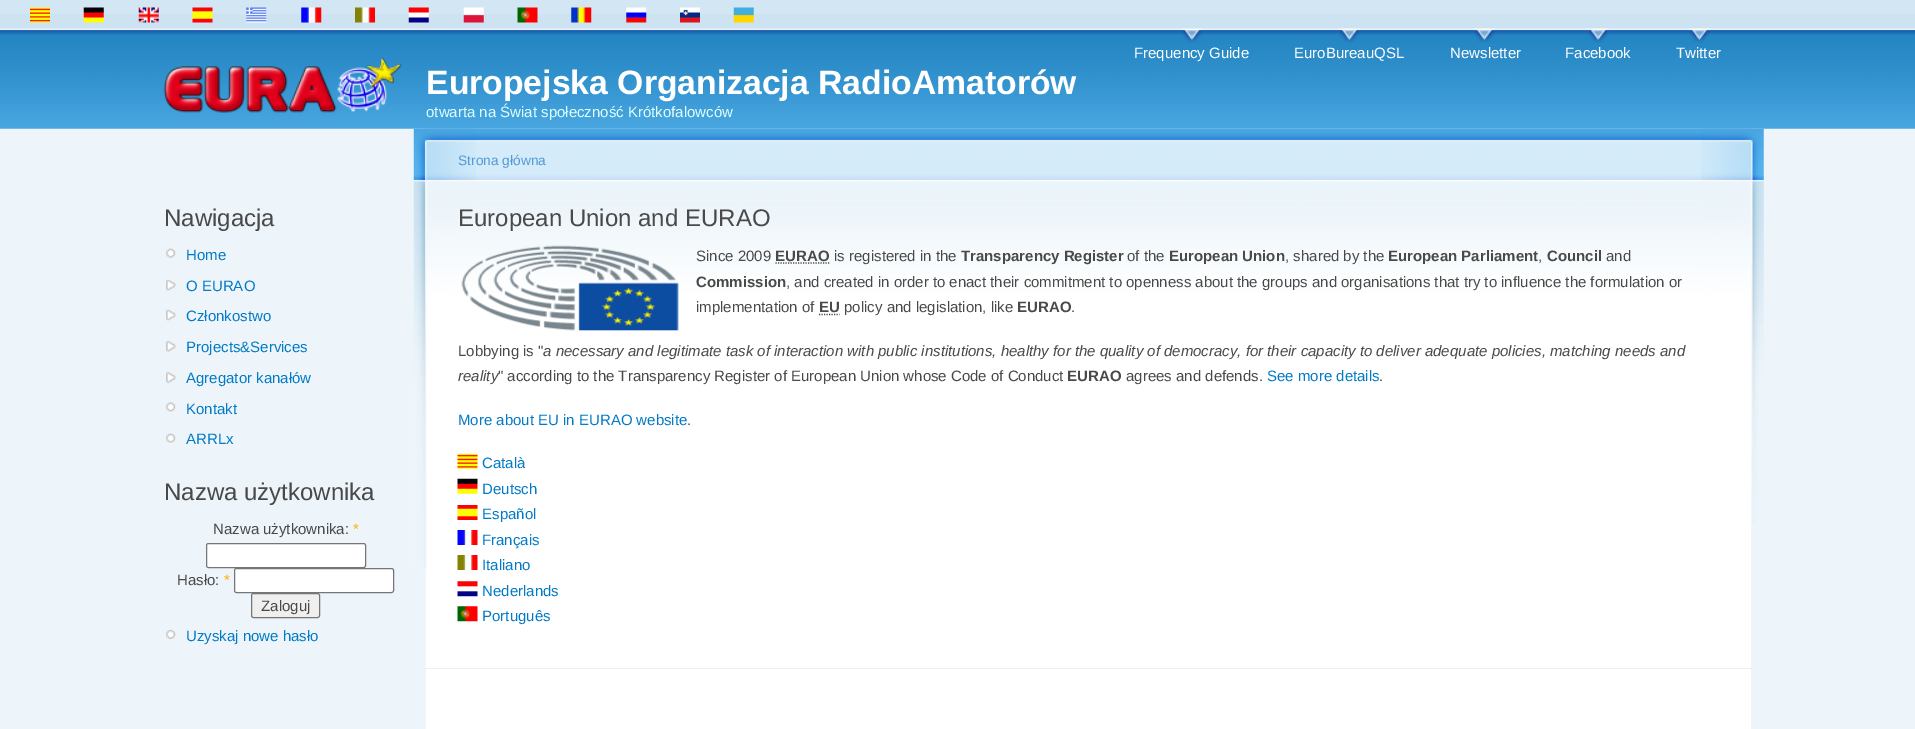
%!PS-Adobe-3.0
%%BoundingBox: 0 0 1915 729
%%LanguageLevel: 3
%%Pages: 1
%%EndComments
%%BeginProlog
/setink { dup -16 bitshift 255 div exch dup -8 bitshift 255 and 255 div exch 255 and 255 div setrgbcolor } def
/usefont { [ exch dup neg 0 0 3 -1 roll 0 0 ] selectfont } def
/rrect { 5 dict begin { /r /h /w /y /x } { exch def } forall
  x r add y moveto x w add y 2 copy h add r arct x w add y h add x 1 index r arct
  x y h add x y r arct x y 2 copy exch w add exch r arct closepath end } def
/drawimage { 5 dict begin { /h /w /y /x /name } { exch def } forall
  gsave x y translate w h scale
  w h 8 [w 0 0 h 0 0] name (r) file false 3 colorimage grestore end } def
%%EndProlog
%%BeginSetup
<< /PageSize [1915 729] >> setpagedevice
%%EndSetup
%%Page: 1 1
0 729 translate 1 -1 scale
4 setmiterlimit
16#EDF5FA setink
0 0 1915 729 rectfill
16#D2E6F3 setink
0 0 1915 29 rectfill
16#CDE3F1 setink
0 14 1915 14 rectfill
(img1.raw) 30 7 20 16 drawimage
(img2.raw) 83 7 21 16 drawimage
(img3.raw) 138 7 21 16 drawimage
(img4.raw) 192 7 21 16 drawimage
(img5.raw) 246 7 21 16 drawimage
(img6.raw) 301 7 21 16 drawimage
(img7.raw) 355 7 20 16 drawimage
(img8.raw) 408 7 21 16 drawimage
(img9.raw) 463 7 21 16 drawimage
(img10.raw) 517 7 21 16 drawimage
(img11.raw) 571 7 21 16 drawimage
(img12.raw) 626 7 21 16 drawimage
(img13.raw) 680 7 20 16 drawimage
(img14.raw) 733 7 21 16 drawimage
(img15.raw) 0 28 1915 101 drawimage
(img16.raw) 1181 28 22 15 drawimage
/LiberationSans-Regular 15 usefont
16#FFFFFF setink
1134 58 moveto (Frequency Guide) show
(img17.raw) 1339 28 21 15 drawimage
1294 58 moveto (EuroBureauQSL) show
(img17.raw) 1474 28 21 15 drawimage
1450 58 moveto (Newsletter) show
(img18.raw) 1587 28 22 15 drawimage
1565 58 moveto (Facebook) show
(img17.raw) 1689 28 21 15 drawimage
1676 58 moveto (Twitter) show
(img19.raw) 163 57 239 56 drawimage
/LiberationSans-Bold 33.75 usefont
426 94 moveto (Europejska Organizacja RadioAmatorów) show
/LiberationSans-Regular 15 usefont
16#E0FFFF setink
426 117 moveto (otwarta na Świat społeczność Krótkofalowców) show
/LiberationSans-Regular 24 usefont
16#494949 setink
164 226 moveto (Nawigacja) show
(img20.raw) 166 248 10 10 drawimage
/LiberationSans-Regular 15 usefont
16#027AC6 setink
186 260 moveto (Home) show
(img21.raw) 166 279 11 12 drawimage
186 291 moveto (O EURAO) show
(img21.raw) 166 309 11 12 drawimage
186 321 moveto (Członkostwo) show
(img22.raw) 166 340 11 13 drawimage
186 352 moveto (Projects&Services) show
(img23.raw) 166 371 11 13 drawimage
186 383 moveto (Agregator kanałów) show
(img24.raw) 166 402 10 10 drawimage
186 414 moveto (Kontakt) show
(img20.raw) 166 433 10 10 drawimage
186 444 moveto (ARRLx) show
/LiberationSans-Regular 24 usefont
16#494949 setink
164 500 moveto (Nazwa użytkownika) show
/LiberationSans-Regular 15 usefont
213 534 moveto (Nazwa użytkownika:) show
16#FFAE00 setink
353 534 moveto (*) show
16#FFFFFF setink
206.5 543.5 159 24 2 rrect gsave fill grestore
16#767676 setink
stroke
16#494949 setink
177 585 moveto (Hasło:) show
16#FFAE00 setink
224 585 moveto (*) show
16#FFFFFF setink
234.5 568.5 159 24 2 rrect gsave fill grestore
16#767676 setink
stroke
16#EFEFEF setink
251.5 593.5 68 24 2 rrect gsave fill grestore
16#767676 setink
stroke
16#494949 setink
261 611 moveto (Zaloguj) show
(img25.raw) 166 630 10 9 drawimage
16#027AC6 setink
186 641 moveto (Uzyskaj nowe hasło) show
16#FFFFFF setink
426 378 1325 351 rectfill
(img26.raw) 426 128 1326 250 drawimage
(img27.raw) 1701 128 63 395 drawimage
(img28.raw) 413 128 63 441 drawimage
/LiberationSans-Regular 13.75 usefont
16#529AD6 setink
458 165 moveto (Strona główna) show
/LiberationSans-Regular 24 usefont
16#494949 setink
458 226 moveto (European Union and EURAO) show
16#E9EFF3 setink
425 668 1328 1 rectfill
(img29.raw) 461 245 218 86 drawimage
/LiberationSans-Regular 15 usefont
16#494949 setink
696 261 moveto (Since 2009) show
/LiberationSans-Bold 15 usefont
775 261 moveto (EURAO) show
1.2 setlinewidth
[1.25 1.25] 0 setdash
775.5 263 moveto 829.5 263 lineto stroke
/LiberationSans-Regular 15 usefont
834 261 moveto (is registered in the) show
/LiberationSans-Bold 15 usefont
961 261 moveto (Transparency Register) show
/LiberationSans-Regular 15 usefont
1127 261 moveto (of the) show
/LiberationSans-Bold 15 usefont
1169 261 moveto (European Union) show
/LiberationSans-Regular 15 usefont
1285 261 moveto (, shared by the) show
/LiberationSans-Bold 15 usefont
1388 261 moveto (European Parliament) show
/LiberationSans-Regular 15 usefont
1538 261 moveto (,) show
/LiberationSans-Bold 15 usefont
1547 261 moveto (Council) show
/LiberationSans-Regular 15 usefont
1606 261 moveto (and) show
/LiberationSans-Bold 15 usefont
696 287 moveto (Commission) show
/LiberationSans-Regular 15 usefont
786 287 moveto (, and created in order to enact their commitment to openness about the groups and organisations that try to influence the formulation or) show
696 312 moveto (implementation of) show
/LiberationSans-Bold 15 usefont
819 312 moveto (EU) show
819 314.5 moveto 839.5 314.5 lineto stroke
/LiberationSans-Regular 15 usefont
844 312 moveto (policy and legislation, like) show
/LiberationSans-Bold 15 usefont
1017 312 moveto (EURAO) show
/LiberationSans-Regular 15 usefont
1071 312 moveto (.) show
458 356 moveto (Lobbying is ") show
/LiberationSans-Italic 15 usefont
543 356 moveto (a necessary and legitimate task of interaction with public institutions, healthy for the quality of democracy, for their capacity to deliver adequate policies, matching needs and) show
458 381 moveto (reality) show
/LiberationSans-Regular 15 usefont
498 381 moveto (" according to the Transparency Register of European Union whose Code of Conduct) show
/LiberationSans-Bold 15 usefont
1067 381 moveto (EURAO) show
/LiberationSans-Regular 15 usefont
1126 381 moveto (agrees and defends.) show
16#027AC6 setink
1267 381 moveto (See more details) show
16#494949 setink
1379 381 moveto (.) show
16#027AC6 setink
458 425 moveto (More about EU in EURAO website) show
16#494949 setink
687 425 moveto (.) show
(img30.raw) 457 453 21 16 drawimage
16#027AC6 setink
482 468 moveto (Català) show
(img31.raw) 457 478 21 16 drawimage
482 494 moveto (Deutsch) show
(img32.raw) 457 505 21 15 drawimage
482 519 moveto (Español) show
(img33.raw) 457 530 21 15 drawimage
482 545 moveto (Français) show
(img34.raw) 457 555 21 15 drawimage
482 570 moveto (Italiano) show
(img35.raw) 457 581 21 16 drawimage
482 596 moveto (Nederlands) show
(img36.raw) 457 606 21 16 drawimage
482 621 moveto (Português) show
showpage
%%EOF
